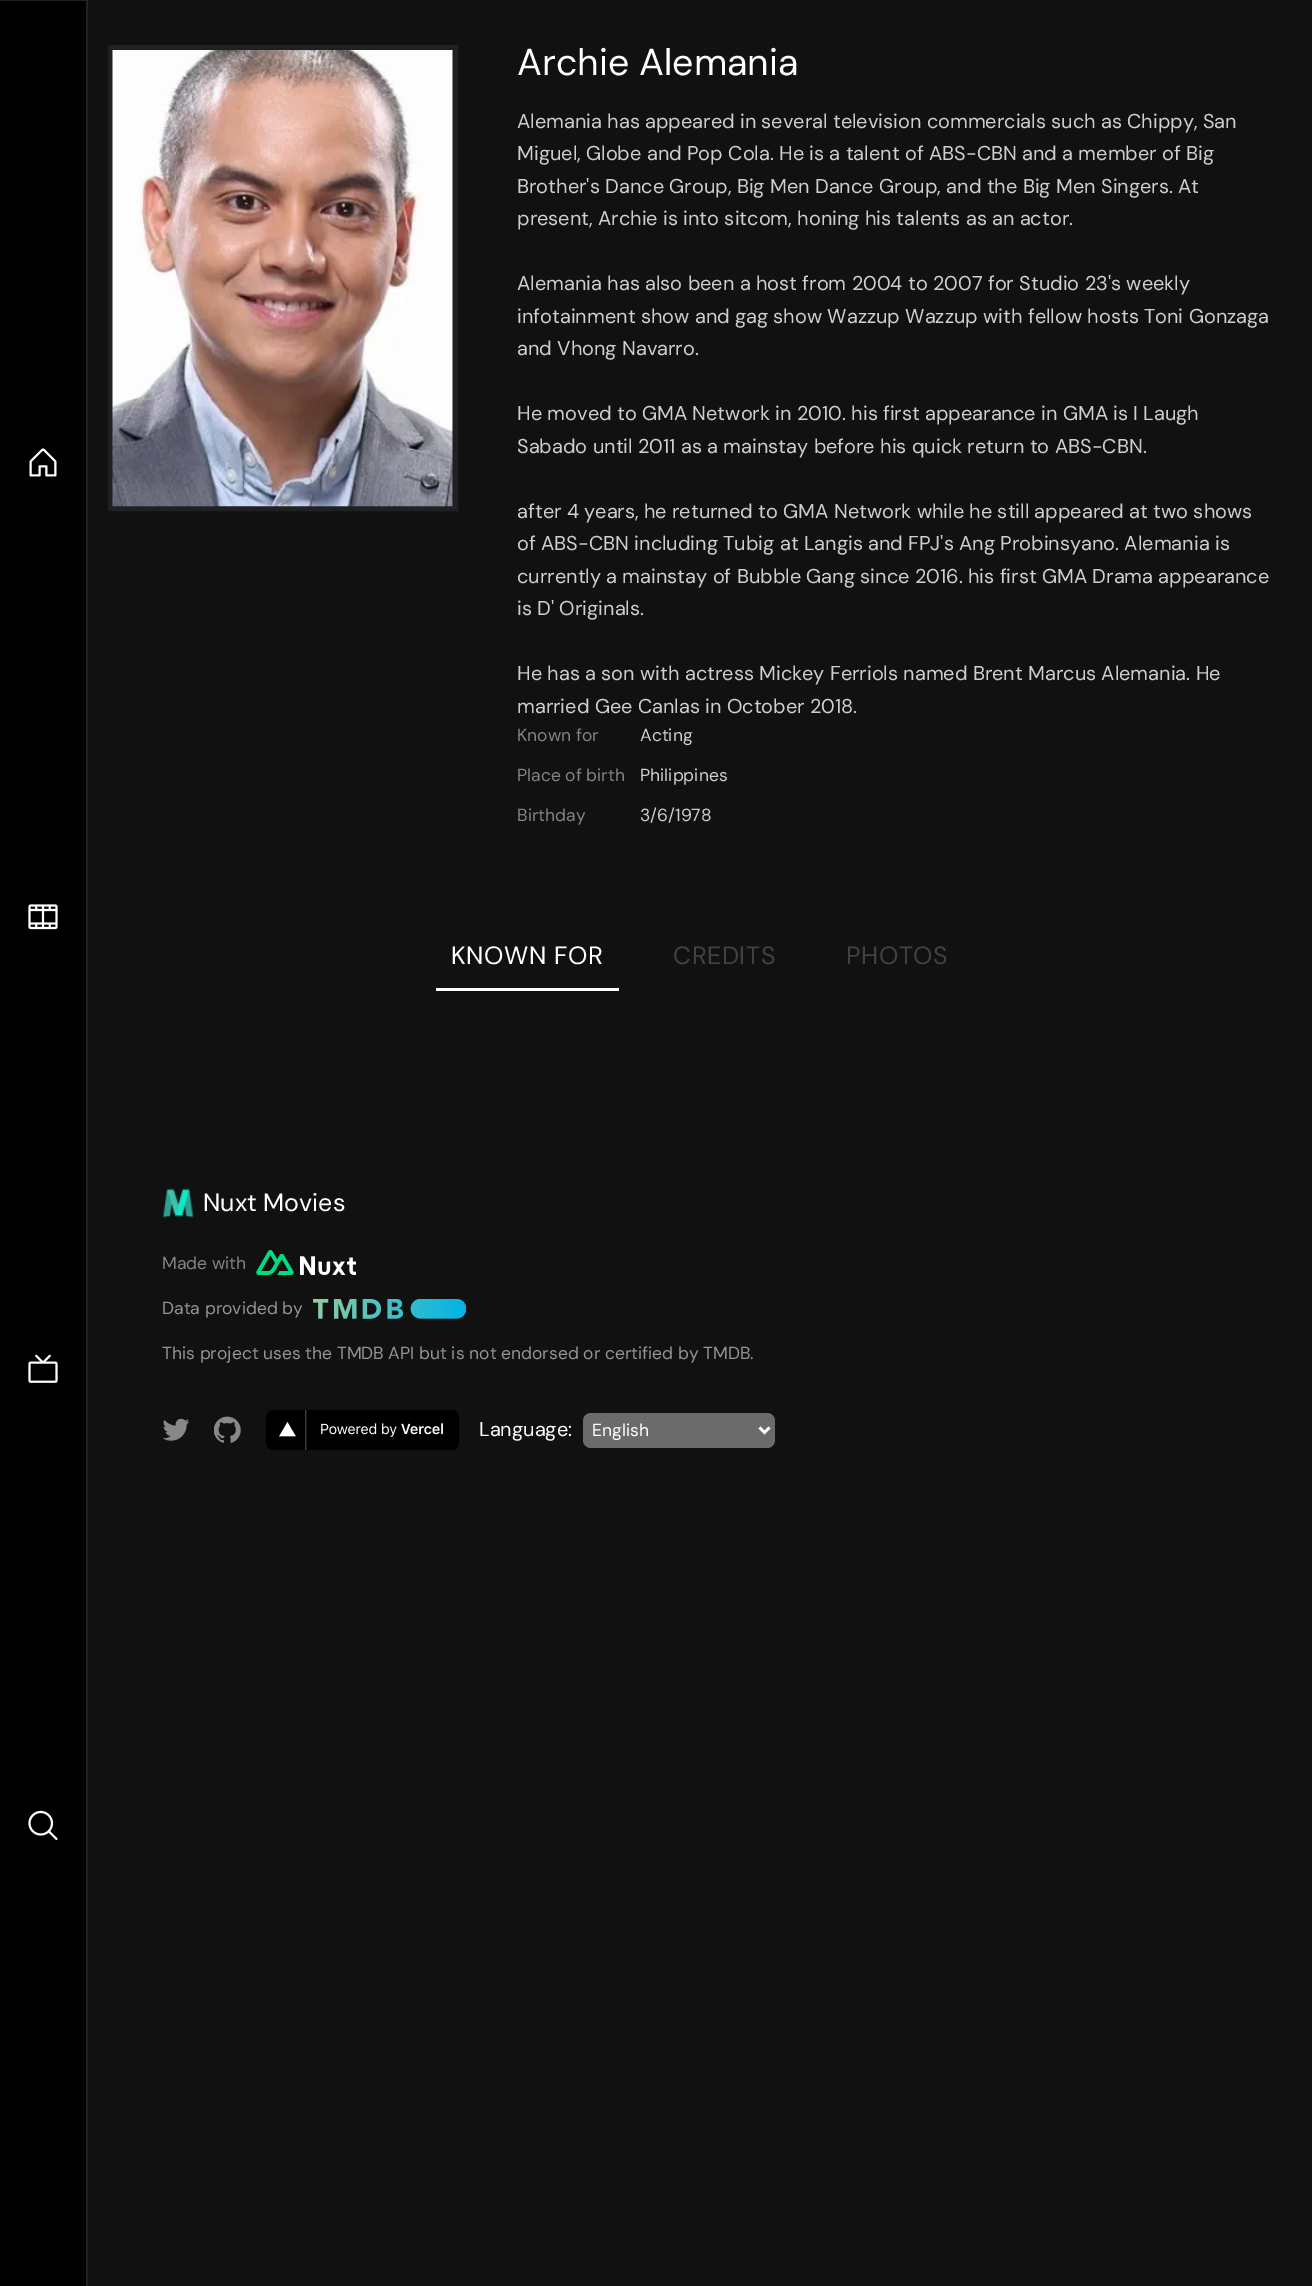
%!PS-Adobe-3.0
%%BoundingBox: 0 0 1312 2286
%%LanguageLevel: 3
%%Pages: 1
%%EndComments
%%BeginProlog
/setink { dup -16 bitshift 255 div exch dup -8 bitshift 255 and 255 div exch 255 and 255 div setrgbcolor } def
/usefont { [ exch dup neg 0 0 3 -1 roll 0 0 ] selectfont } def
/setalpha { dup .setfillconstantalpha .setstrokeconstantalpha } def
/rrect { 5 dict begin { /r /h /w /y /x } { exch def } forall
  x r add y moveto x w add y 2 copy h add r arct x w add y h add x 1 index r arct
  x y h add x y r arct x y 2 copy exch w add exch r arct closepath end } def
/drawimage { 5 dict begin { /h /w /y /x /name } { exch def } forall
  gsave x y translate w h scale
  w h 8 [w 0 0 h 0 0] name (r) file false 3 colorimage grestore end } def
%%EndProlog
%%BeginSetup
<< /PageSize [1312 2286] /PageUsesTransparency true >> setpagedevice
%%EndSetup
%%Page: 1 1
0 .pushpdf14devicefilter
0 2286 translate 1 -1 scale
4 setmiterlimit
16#111111 setink
0 0 1312 2286 rectfill
16#000000 setink
0 0 88 2286 rectfill
16#1F2123 setink
0 0 moveto 88 0 lineto 86 1 lineto 0 1 lineto closepath fill
0.2 setalpha
16#9CA3AF setink
88 0 moveto 88 2286 lineto 86 2286 lineto 86 1 lineto closepath fill
1 setalpha
(img1.raw) 29 448 28 29 drawimage
(img2.raw) 28 904 30 26 drawimage
(img3.raw) 28 1354 30 29 drawimage
(img4.raw) 28 1810 30 31 drawimage
16#1F2021 setink
5 setlinewidth
110.5 47.5 345 461 rectstroke
(img5.raw) 112 50 341 457 drawimage
/DMSans-Regular 37.5 usefont
16#FFFFFF setink
517 75 moveto (Archie Alemania) show
/DMSans-Regular 20 usefont
16#CFCFCF setink
[
    [(Alemania has appeared in several television commercials such as Chippy, San) 517 128]
    [(Miguel, Globe and Pop Cola. He is a talent of ABS-CBN and a member of Big) 517 160]
    [(Brother's Dance Group, Big Men Dance Group, and the Big Men Singers. At) 517 193]
    [(present, Archie is into sitcom, honing his talents as an actor.) 517 225]
    [(Alemania has also been a host from 2004 to 2007 for Studio 23's weekly) 517 290]
    [(infotainment show and gag show Wazzup Wazzup with fellow hosts Toni Gonzaga) 517 323]
    [(and Vhong Navarro.) 517 355]
    [(He moved to GMA Network in 2010. his first appearance in GMA is I Laugh) 517 420]
    [(Sabado until 2011 as a mainstay before his quick return to ABS-CBN.) 517 453]
    [(after 4 years, he returned to GMA Network while he still appeared at two shows) 517 518]
    [(of ABS-CBN including Tubig at Langis and FPJ's Ang Probinsyano. Alemania is) 517 550]
    [(currently a mainstay of Bubble Gang since 2016. his first GMA Drama appearance) 517 583]
    [(is D' Originals.) 517 615]
    [(He has a son with actress Mickey Ferriols named Brent Marcus Alemania. He) 517 680]
    [(married Gee Canlas in October 2018.) 517 713]
] { aload pop moveto show } forall
/DMSans-Regular 17.5 usefont
16#838383 setink
517 741 moveto (Known for) show
16#CFCFCF setink
640 741 moveto (Acting) show
16#838383 setink
517 781 moveto (Place of birth) show
16#CFCFCF setink
640 781 moveto (Philippines) show
16#838383 setink
517 821 moveto (Birthday) show
16#CFCFCF setink
640 821 moveto (3/6/1978) show
16#FFFFFF setink
436 988 183 3 rectfill
/DMSans-Regular 25 usefont
451 964 moveto 0.6 0 (KNOWN FOR) ashow
16#414141 setink
673 964 moveto 0.6 0 (CREDITS) ashow
846 964 moveto 0.6 0 (PHOTOS) ashow
(img6.raw) 162 1188 32 30 drawimage
16#FFFFFF setink
203 1211 moveto (Nuxt Movies) show
/DMSans-Regular 17.5 usefont
16#838383 setink
162 1269 moveto (Made with) show
(img7.raw) 256 1250 100 25 drawimage
16#949494 setink
162 1314 moveto (Data provided by) show
(img8.raw) 313 1299 153 20 drawimage
162 1359 moveto (This project uses the TMDB API but is not endorsed or certified by TMDB.) show
(img9.raw) 163 1418 26 23 drawimage
(img10.raw) 214 1416 27 27 drawimage
(img11.raw) 266 1410 193 40 drawimage
/DMSans-Regular 20 usefont
16#FFFFFF setink
479 1436 moveto (Language:) show
16#6B6B6B setink
583 1413 192 35 8 rrect fill
16#FFFFFF setink
2.5 setlinewidth
759.5 1427.5 moveto 764.5 1432.5 lineto 769.5 1427.5 lineto stroke
/DMSans-Regular 17.5 usefont
592 1436 moveto (English) show
.poppdf14devicefilter showpage
%%EOF
